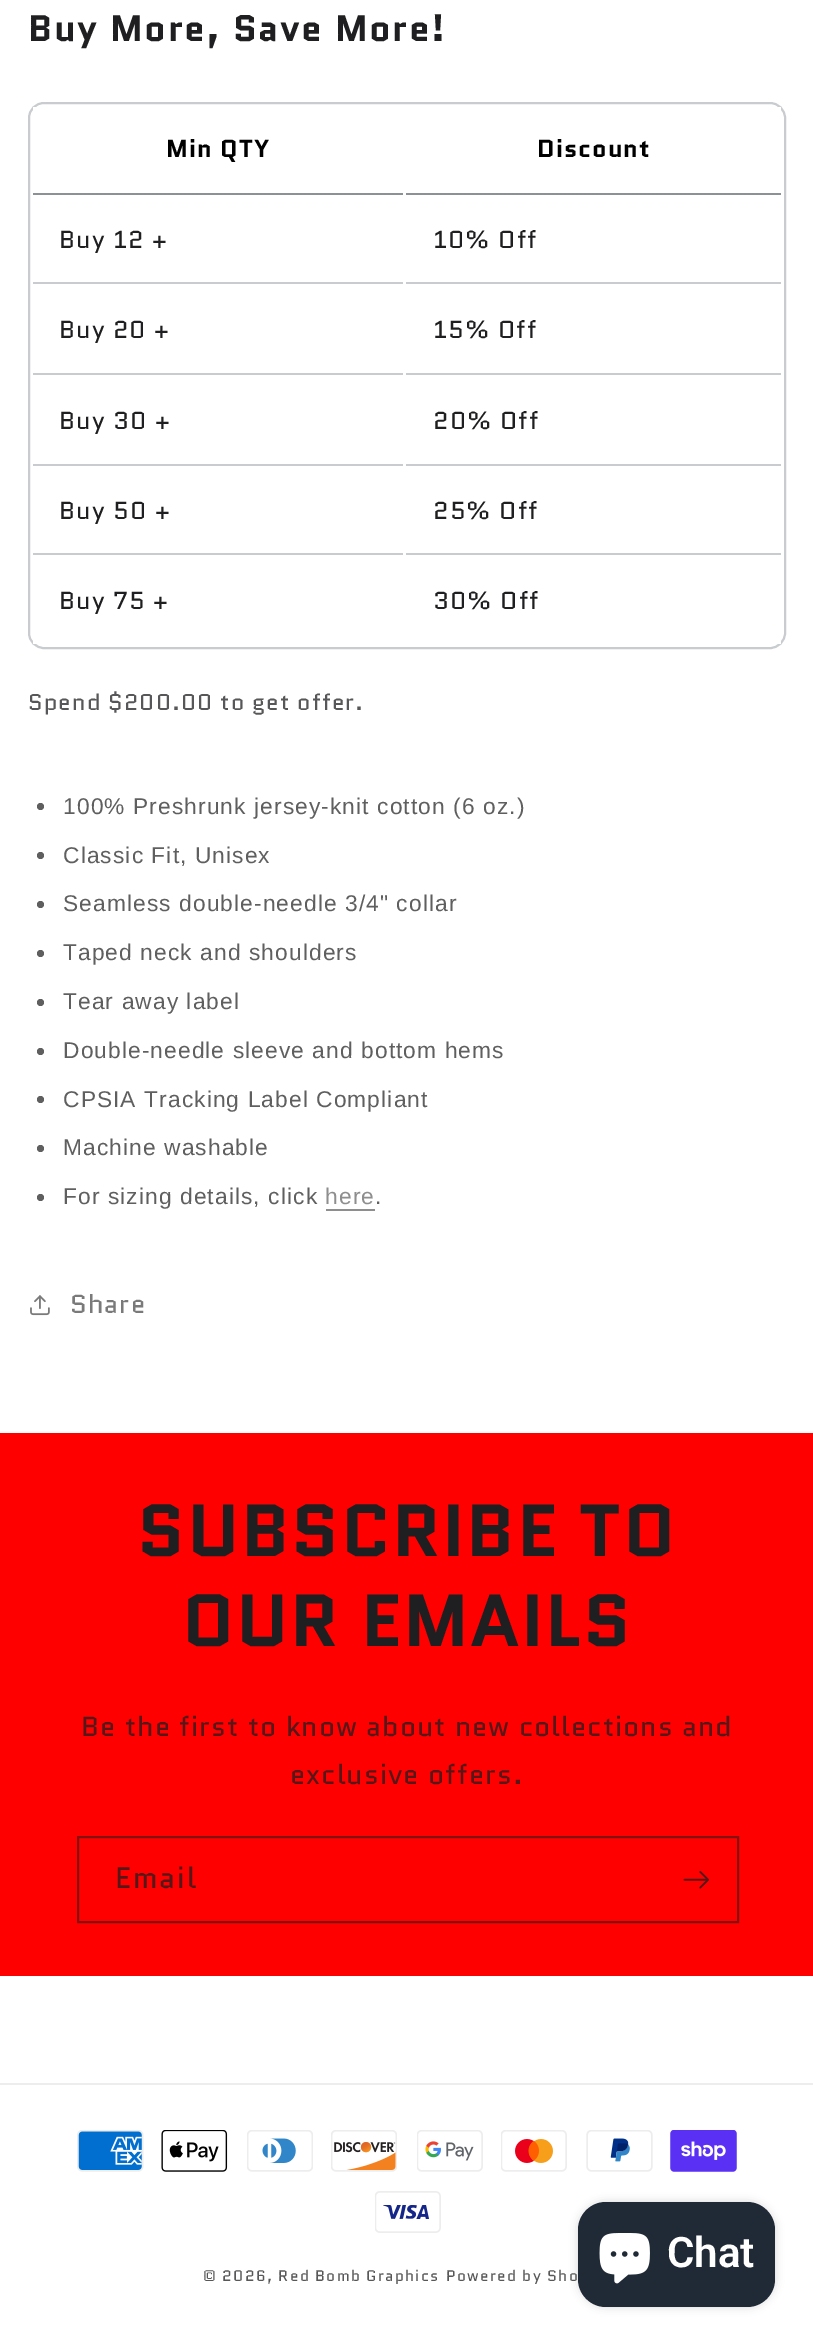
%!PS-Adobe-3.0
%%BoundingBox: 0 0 813 2343
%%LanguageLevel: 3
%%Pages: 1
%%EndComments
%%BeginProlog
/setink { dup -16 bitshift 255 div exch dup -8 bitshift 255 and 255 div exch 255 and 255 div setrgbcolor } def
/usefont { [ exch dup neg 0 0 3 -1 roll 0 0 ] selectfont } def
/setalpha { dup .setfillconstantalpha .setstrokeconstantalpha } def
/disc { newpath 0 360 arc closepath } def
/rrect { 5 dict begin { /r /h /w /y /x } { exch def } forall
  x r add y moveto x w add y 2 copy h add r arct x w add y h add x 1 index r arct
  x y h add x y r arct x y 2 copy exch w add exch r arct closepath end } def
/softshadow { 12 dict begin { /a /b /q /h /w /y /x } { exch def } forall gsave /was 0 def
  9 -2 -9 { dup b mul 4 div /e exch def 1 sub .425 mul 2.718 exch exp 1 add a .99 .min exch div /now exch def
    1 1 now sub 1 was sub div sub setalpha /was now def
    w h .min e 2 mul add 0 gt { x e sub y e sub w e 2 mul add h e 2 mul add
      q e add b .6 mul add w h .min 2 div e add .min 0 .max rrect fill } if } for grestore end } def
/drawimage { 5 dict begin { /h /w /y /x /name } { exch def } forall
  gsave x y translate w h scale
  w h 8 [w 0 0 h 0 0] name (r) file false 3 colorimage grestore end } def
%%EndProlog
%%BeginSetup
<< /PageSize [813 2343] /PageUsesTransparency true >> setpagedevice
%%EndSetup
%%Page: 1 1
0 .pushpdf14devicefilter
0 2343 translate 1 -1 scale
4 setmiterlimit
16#FFFFFF setink
0 0 813 2343 rectfill
/Quantico-Bold 36.75 usefont
16#1F1F21 setink
28 41 moveto 1.5 0 (Buy More, Save More!) ashow
16#C9CCCF setink
2 setlinewidth
29 103 756 545 15 rrect stroke
gsave
30 103 754 545 14 rrect clip newpath
16#FFFFFF setink
33 107 748 87 rectfill
grestore
16#8C9196 setink
33 193 370 2 rectfill
/Quantico-Bold 24.5 usefont
16#000000 setink
166 157 moveto 1.1 0 (Min QTY) ashow
16#8C9196 setink
406 193 375 2 rectfill
16#000000 setink
537 157 moveto 1.1 0 (Discount) ashow
gsave
30 103 754 545 14 rrect clip newpath
16#FFFFFF setink
33 198 748 446 rectfill
grestore
16#C9CCCF setink
33 282 370 2 rectfill
/Quantico-Regular 24.5 usefont
16#1F1F21 setink
59 248 moveto 1.1 0 (Buy 12 +) ashow
16#C9CCCF setink
406 282 375 2 rectfill
16#1F1F21 setink
433 248 moveto 1.1 0 (10% Off) ashow
16#C9CCCF setink
33 373 370 2 rectfill
16#1F1F21 setink
59 338 moveto 1.1 0 (Buy 20 +) ashow
16#C9CCCF setink
406 373 375 2 rectfill
16#1F1F21 setink
433 338 moveto 1.1 0 (15% Off) ashow
16#C9CCCF setink
33 464 370 2 rectfill
16#1F1F21 setink
59 429 moveto 1.1 0 (Buy 30 +) ashow
16#C9CCCF setink
406 464 375 2 rectfill
16#1F1F21 setink
433 429 moveto 1.1 0 (20% Off) ashow
16#C9CCCF setink
33 553 370 2 rectfill
16#1F1F21 setink
59 519 moveto 1.1 0 (Buy 50 +) ashow
16#C9CCCF setink
406 553 375 2 rectfill
16#1F1F21 setink
433 519 moveto 1.1 0 (25% Off) ashow
59 609 moveto 1.1 0 (Buy 75 +) ashow
433 609 moveto 1.1 0 (30% Off) ashow
/Quantico-Regular 22.75 usefont
16#575759 setink
28 710 moveto 1.1 0 (Spend $200.00 to get offer.) ashow
16#605F5F setink
40.5 806.5 3.5 disc fill
/LiberationSans-Regular 22.75 usefont
63 814 moveto 1.1 0 (100% Preshrunk jersey-knit cotton \(6 oz.\)) ashow
40.5 855.5 3.5 disc fill
63 863 moveto 1.1 0 (Classic Fit, Unisex) ashow
40.5 904.5 3.5 disc fill
63 911 moveto 1.1 0 (Seamless double-needle 3/4" collar) ashow
40.5 953.5 3.5 disc fill
63 960 moveto 1.1 0 (Taped neck and shoulders) ashow
40.5 1002.5 3.5 disc fill
63 1009 moveto 1.1 0 (Tear away label) ashow
40.5 1051.5 3.5 disc fill
63 1058 moveto 1.1 0 (Double-needle sleeve and bottom hems) ashow
40.5 1099.5 3.5 disc fill
63 1107 moveto 1.1 0 (CPSIA Tracking Label Compliant) ashow
40.5 1148.5 3.5 disc fill
63 1155 moveto 1.1 0 (Machine washable) ashow
40.5 1197.5 3.5 disc fill
63 1204 moveto 1.1 0 (For sizing details, click) ashow
16#8E8E8E setink
325 1204 moveto 1.1 0 (here) ashow
326 1209 49 2 rectfill
16#605F5F setink
375 1204 moveto 1.1 0 (.) ashow
(img1.raw) 30 1295 20 21 drawimage
/Quantico-Regular 26 usefont
16#7A7A7A setink
70 1313 moveto 1.1 0 (Share) ashow
16#FF0000 setink
0 1433 813 543 rectfill
/Quantico-Bold 73.5 usefont
16#1F1F21 setink
137 1556 moveto 1.5 0 (SUBSCRIBE TO) ashow
182 1646 moveto 1.5 0 (OUR EMAILS) ashow
/Quantico-Regular 27.6 usefont
16#571719 setink
81 1736 moveto 1.1 0 (Be the first to know about new collections and) ashow
290 1784 moveto 1.1 0 (exclusive offers.) ashow
16#841112 setink
78 1837 660 85 rectstroke
/Quantico-Regular 29.5 usefont
16#571719 setink
115 1888 moveto 2 0 (Email) ashow
(img2.raw) 683 1870 26 19 drawimage
16#000000 setink
578 2202 197 105 28 4.5 0.15 softshadow
16#202A36 setink
578 2202 197 105 28 rrect fill
(img3.raw) 599 2233 51 51 drawimage
/Roboto-SemiBold 42 usefont
16#FFFFFF setink
667 2267 moveto (Chat) show
16#EDEDED setink
0 2083 813 2 rectfill
(img4.raw) 77 2130 67 42 drawimage
(img5.raw) 161 2130 67 42 drawimage
(img6.raw) 247 2130 66 42 drawimage
(img7.raw) 331 2130 66 42 drawimage
(img8.raw) 417 2130 66 42 drawimage
(img9.raw) 501 2130 66 42 drawimage
(img10.raw) 586 2130 67 42 drawimage
(img11.raw) 670 2130 67 42 drawimage
(img12.raw) 375 2191 66 42 drawimage
/Quantico-Regular 15.25 usefont
16#575759 setink
203 2281 moveto 1.3 0 (© 2026, Red Bomb Graphics) ashow
446 2281 moveto 1.3 0 (Powered by Sho) ashow
.poppdf14devicefilter showpage
%%EOF
